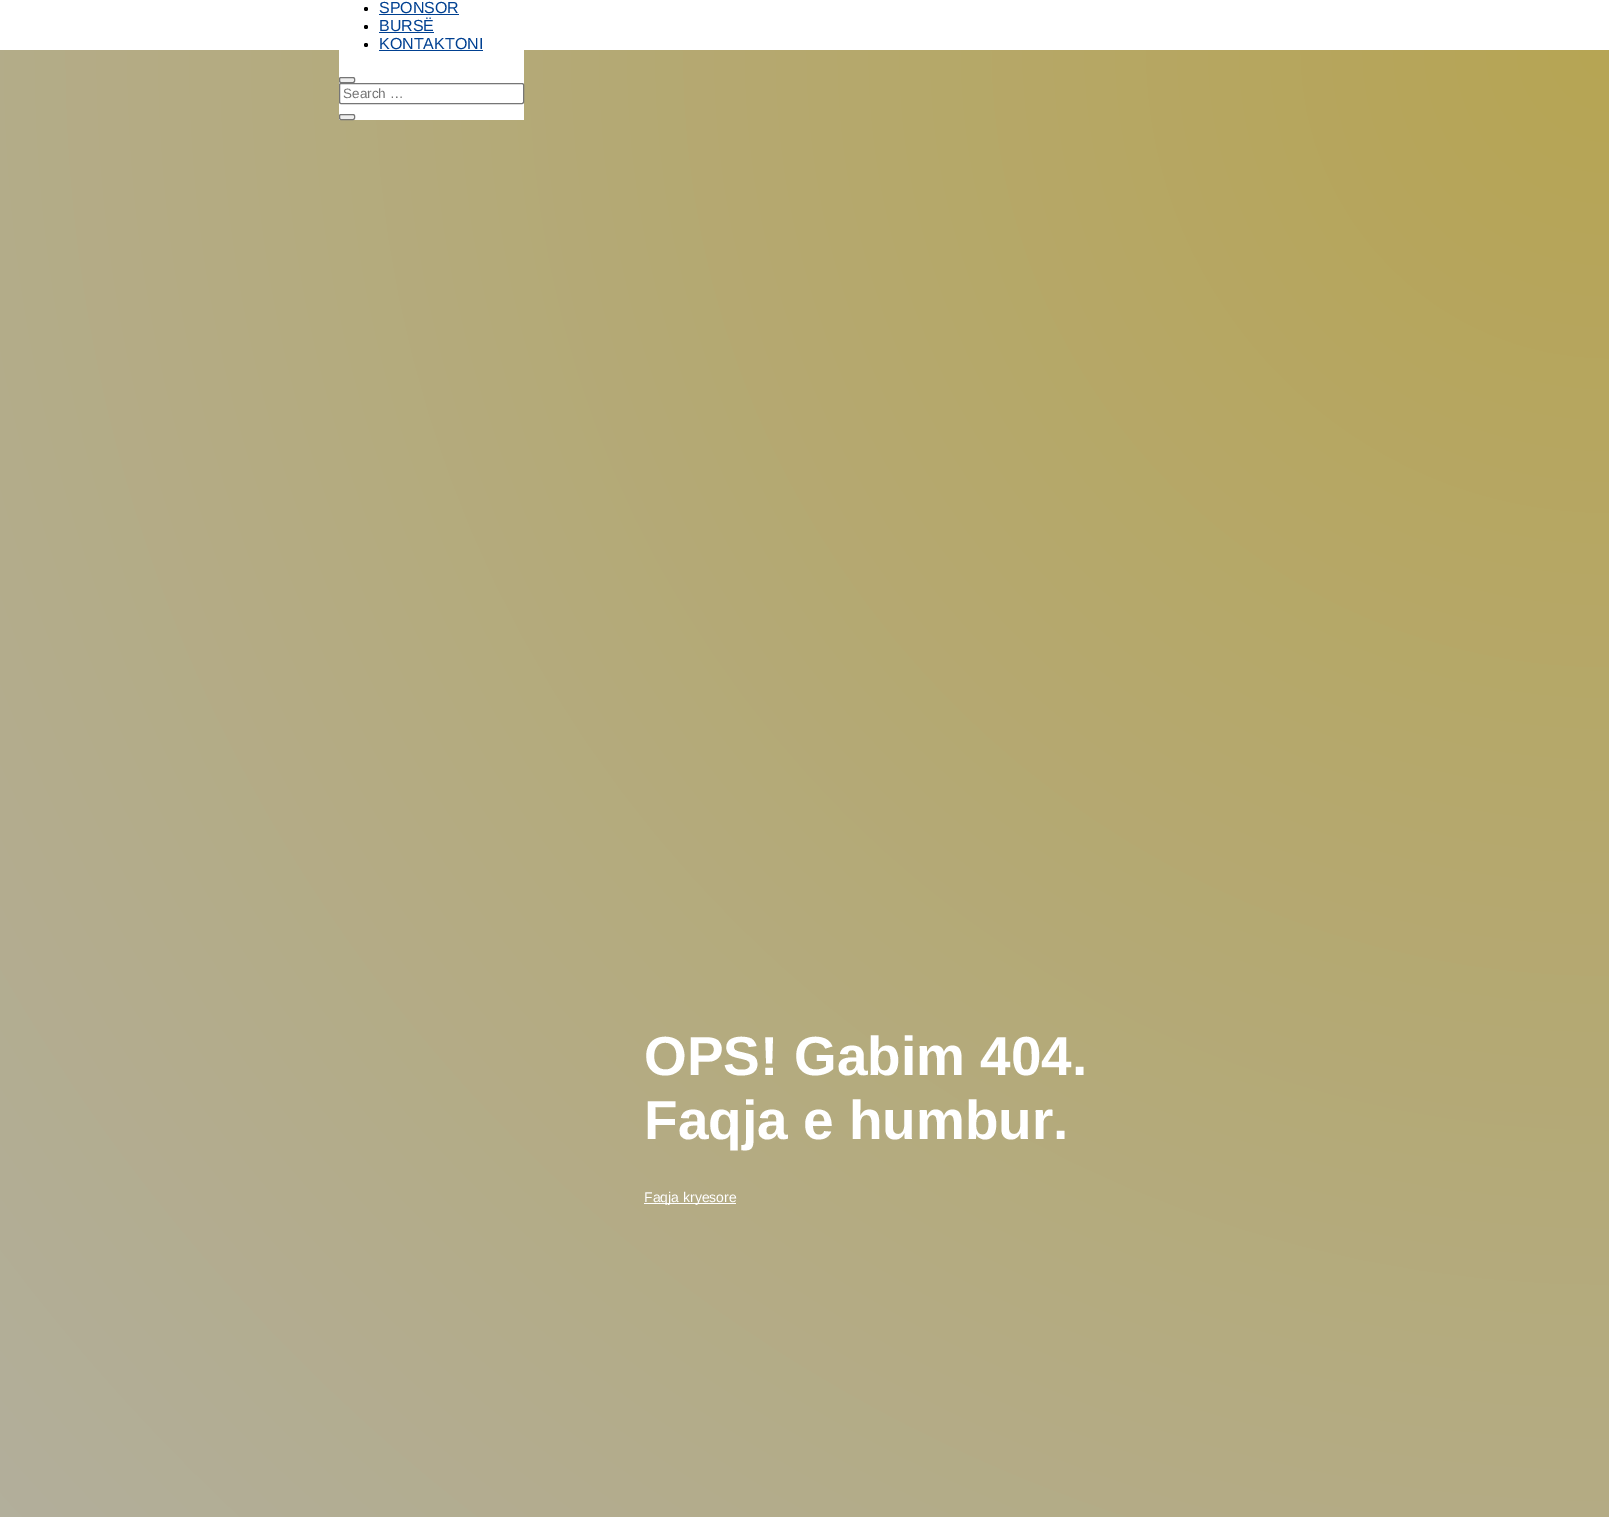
%!PS-Adobe-3.0
%%BoundingBox: 0 0 1609 1517
%%LanguageLevel: 3
%%Pages: 1
%%EndComments
%%BeginProlog
/setink { dup -16 bitshift 255 div exch dup -8 bitshift 255 and 255 div exch 255 and 255 div setrgbcolor } def
/usefont { [ exch dup neg 0 0 3 -1 roll 0 0 ] selectfont } def
/disc { newpath 0 360 arc closepath } def
/rrect { 5 dict begin { /r /h /w /y /x } { exch def } forall
  x r add y moveto x w add y 2 copy h add r arct x w add y h add x 1 index r arct
  x y h add x y r arct x y 2 copy exch w add exch r arct closepath end } def
%%EndProlog
%%BeginSetup
<< /PageSize [1609 1517] >> setpagedevice
%%EndSetup
%%Page: 1 1
0 1517 translate 1 -1 scale
4 setmiterlimit
16#FFFFFF setink
0 0 1609 1517 rectfill
gsave 0 50 moveto 1609 50 lineto 1609 1517 lineto 0 1517 lineto closepath clip newpath 1609 50 translate 2470 2470 scale
<< /ShadingType 3 /ColorSpace /DeviceRGB /Coords [0 0 0 0 0 1] /Extend [true true] /Function << /FunctionType 3 /Domain [0 1] /Functions [<< /FunctionType 2 /Domain [0 1] /C0 [0.718 0.647 0.329] /C1 [0.698 0.686 0.616] /N 1 >> << /FunctionType 2 /Domain [0 1] /C0 [0.698 0.686 0.616] /C1 [0.698 0.686 0.616] /N 1 >>] /Bounds [0.9] /Encode [0 1 0 1] >> >> shfill grestore
339 50 185 70 rectfill
16#000000 setink
366 9 2 disc fill
/LiberationSans-Regular 16 usefont
16#004091 setink
379 13 moveto (SPONSOR) show
379 14 80 1 rectfill
16#000000 setink
366 27 2 disc fill
16#004091 setink
379 31 moveto (BURSË) show
379 32 55 1 rectfill
16#000000 setink
366 45 2 disc fill
16#004091 setink
379 49 moveto (KONTAKTONI) show
379 50 104 1 rectfill
16#EFEFEF setink
339.5 77.5 15 5 1.5 rrect gsave fill grestore
16#767676 setink
stroke
339.5 83.5 184 20 1.5 rrect stroke
/LiberationSans-Regular 13.5 usefont
16#757575 setink
343 98 moveto (Search …) show
16#EFEFEF setink
339.5 114.5 15 5 1.5 rrect gsave fill grestore
16#767676 setink
stroke
/LiberationSans-Bold 55 usefont
16#FFFFFF setink
644 1075 moveto (OPS! Gabim 404.) show
644 1139 moveto (Faqja e humbur.) show
644 1203 92 1 rectfill
/LiberationSans-Regular 14 usefont
644 1202 moveto (Faqja kryesore) show
showpage
%%EOF
